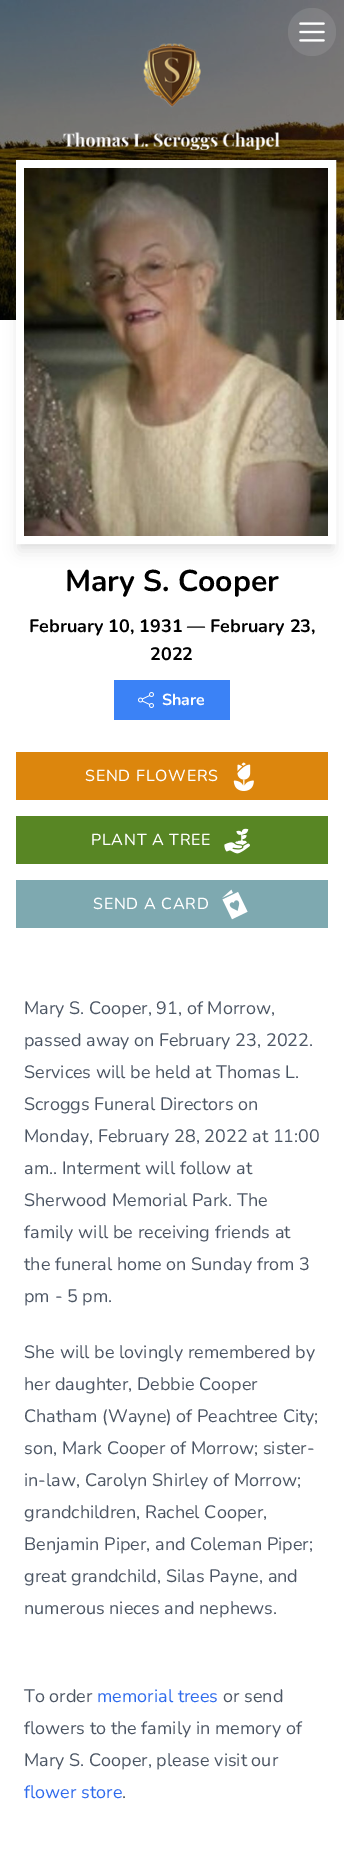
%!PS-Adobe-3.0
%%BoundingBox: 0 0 344 1873
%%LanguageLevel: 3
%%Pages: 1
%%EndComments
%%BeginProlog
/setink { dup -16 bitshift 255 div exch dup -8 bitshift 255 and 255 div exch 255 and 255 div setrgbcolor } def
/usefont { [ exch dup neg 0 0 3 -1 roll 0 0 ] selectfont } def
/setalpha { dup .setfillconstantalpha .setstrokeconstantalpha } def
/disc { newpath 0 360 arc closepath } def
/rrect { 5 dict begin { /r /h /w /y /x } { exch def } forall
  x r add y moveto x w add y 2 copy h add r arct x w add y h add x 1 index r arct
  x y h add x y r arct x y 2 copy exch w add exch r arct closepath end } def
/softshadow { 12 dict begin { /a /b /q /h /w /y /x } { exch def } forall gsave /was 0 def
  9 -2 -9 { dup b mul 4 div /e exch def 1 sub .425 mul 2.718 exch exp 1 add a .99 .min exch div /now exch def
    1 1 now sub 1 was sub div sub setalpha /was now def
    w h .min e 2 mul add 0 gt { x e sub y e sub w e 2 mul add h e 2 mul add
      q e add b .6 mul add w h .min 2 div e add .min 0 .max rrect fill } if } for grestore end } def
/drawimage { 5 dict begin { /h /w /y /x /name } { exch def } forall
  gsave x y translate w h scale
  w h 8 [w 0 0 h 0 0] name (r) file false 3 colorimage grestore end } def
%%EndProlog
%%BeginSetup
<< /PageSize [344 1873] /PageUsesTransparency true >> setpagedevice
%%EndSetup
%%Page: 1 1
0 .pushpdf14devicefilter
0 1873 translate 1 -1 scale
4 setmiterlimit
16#FFFFFF setink
0 0 344 1873 rectfill
(img1.raw) 0 0 344 320 drawimage
16#000000 setink
19 173 314 378 0 7.5 0.1 softshadow
(img2.raw) 62 43 218 107 drawimage
0.1 setalpha
16#FFFFFF setink
312 32 24 disc fill
1 setalpha
(img3.raw) 299 22 26 20 drawimage
16#000000 setink
20 168 312 376 0 3 0.1 softshadow
16#FFFFFF setink
8 setlinewidth
20 164 312 376 rectstroke
(img4.raw) 24 168 304 368 drawimage
/Nunito-Bold 30 usefont
16#000000 setink
65 591 moveto (Mary S. Cooper) show
/Nunito-Bold 18 usefont
29 632 moveto (February 10, 1931 — February 23,) show
150 660 moveto (2022) show
16#3B82F6 setink
114 680 116 40 rectfill
(img5.raw) 138 692 16 16 drawimage
/Nunito-Bold 16 usefont
16#FFFFFF setink
162 705 moveto (Share) show
16#DC860D setink
16 752 312 48 rectfill
/Nunito-Medium 16 usefont
16#FFFFFF setink
85 781 moveto 0.75 0 (SEND FLOWERS) ashow
(img6.raw) 233 762 21 29 drawimage
16#588624 setink
16 816 312 48 rectfill
16#FFFFFF setink
91 845 moveto 0.75 0 (PLANT A TREE) ashow
(img7.raw) 224 828 26 26 drawimage
16#7EA9B0 setink
16 880 312 48 rectfill
16#FFFFFF setink
93 909 moveto 0.75 0 (SEND A CARD) ashow
(img8.raw) 222 889 26 31 drawimage
/Nunito-Regular 18 usefont
16#4B5563 setink
[
    [(Mary S. Cooper, 91, of Morrow,) 24 1014]
    [(passed away on February 23, 2022.) 24 1046]
    [(Services will be held at Thomas L.) 24 1078]
    [(Scroggs Funeral Directors on) 24 1110]
    [(Monday, February 28, 2022 at 11:00) 24 1142]
    [(am.. Interment will follow at) 24 1174]
    [(Sherwood Memorial Park. The) 24 1206]
    [(family will be receiving friends at) 24 1238]
    [(the funeral home on Sunday from 3) 24 1270]
    [(pm - 5 pm.) 24 1302]
    [(She will be lovingly remembered by) 24 1358]
    [(her daughter, Debbie Cooper) 24 1390]
    [(Chatham \(Wayne\) of Peachtree City;) 24 1422]
    [(son, Mark Cooper of Morrow; sister-) 24 1454]
    [(in-law, Carolyn Shirley of Morrow;) 24 1486]
    [(grandchildren, Rachel Cooper,) 24 1518]
    [(Benjamin Piper, and Coleman Piper;) 24 1550]
    [(great grandchild, Silas Payne, and) 24 1582]
    [(numerous nieces and nephews.) 24 1614]
    [(To order) 24 1702]
] { aload pop moveto show } forall
16#2E6AEC setink
97 1702 moveto (memorial trees) show
16#4B5563 setink
[
    [(or send) 223 1702]
    [(flowers to the family in memory of) 24 1734]
    [(Mary S. Cooper, please visit our) 24 1766]
] { aload pop moveto show } forall
16#2E6AEC setink
24 1798 moveto (flower store) show
16#4B5563 setink
122 1798 moveto (.) show
.poppdf14devicefilter showpage
%%EOF
